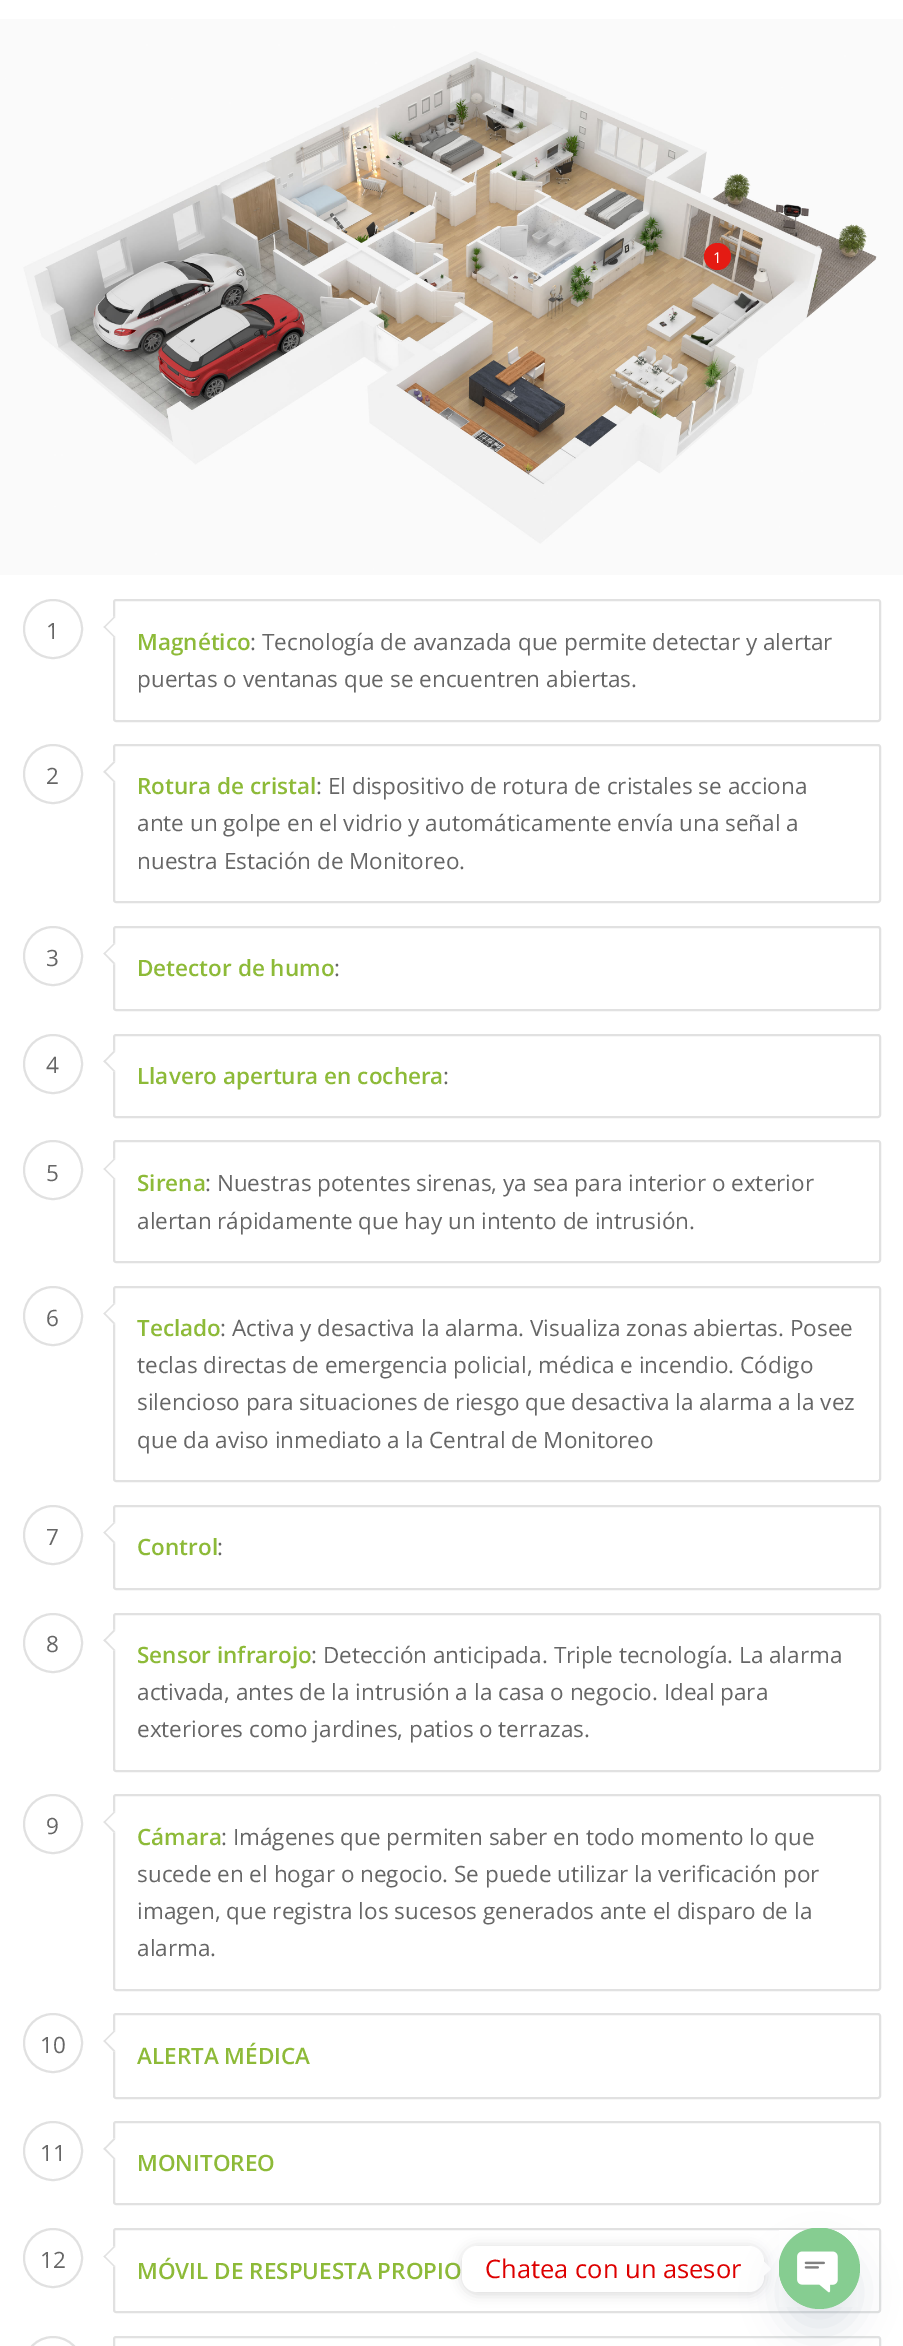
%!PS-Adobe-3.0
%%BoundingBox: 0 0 903 2346
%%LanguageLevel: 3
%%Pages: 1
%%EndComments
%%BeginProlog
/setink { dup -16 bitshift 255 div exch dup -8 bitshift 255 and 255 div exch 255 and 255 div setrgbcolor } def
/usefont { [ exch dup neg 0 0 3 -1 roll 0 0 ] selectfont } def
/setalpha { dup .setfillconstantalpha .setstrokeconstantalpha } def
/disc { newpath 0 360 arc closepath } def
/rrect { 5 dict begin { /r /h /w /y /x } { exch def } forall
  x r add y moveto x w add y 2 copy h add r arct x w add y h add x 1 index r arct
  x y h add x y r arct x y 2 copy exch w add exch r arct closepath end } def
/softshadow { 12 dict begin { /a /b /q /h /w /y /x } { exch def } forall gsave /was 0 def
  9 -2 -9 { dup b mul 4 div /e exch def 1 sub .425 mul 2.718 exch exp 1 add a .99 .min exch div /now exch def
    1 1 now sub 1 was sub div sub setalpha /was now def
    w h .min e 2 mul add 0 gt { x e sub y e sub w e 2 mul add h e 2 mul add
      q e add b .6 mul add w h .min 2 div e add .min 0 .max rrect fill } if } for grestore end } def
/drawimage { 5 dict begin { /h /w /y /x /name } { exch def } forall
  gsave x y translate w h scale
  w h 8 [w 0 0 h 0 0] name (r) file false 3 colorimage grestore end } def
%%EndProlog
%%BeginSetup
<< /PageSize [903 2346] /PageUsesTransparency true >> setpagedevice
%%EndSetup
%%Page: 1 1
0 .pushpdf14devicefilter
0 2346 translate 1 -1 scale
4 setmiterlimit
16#FFFFFF setink
0 0 903 2346 rectfill
(img1.raw) 0 19 903 556 drawimage
16#E41B13 setink
717.5 256.5 13.5 disc fill
/OpenSans-Regular 15 usefont
16#FFFFFF setink
713 263 moveto (1) show
16#E1E1E1 setink
2 setlinewidth
53 629 29 disc stroke
/OpenSans-Regular 22.5 usefont
16#666666 setink
46 639 moveto (1) show
16#E1E1E1 setink
114 600 766 121 2 rrect stroke
16#FFFFFF setink
114 616.5 moveto 124.5 627 lineto 114 637.5 lineto 103.5 627 lineto closepath fill
16#E1E1E1 setink
104.5 626 moveto 115 636.5 lineto 114 637.5 lineto 103.5 627 lineto closepath fill
114 616.5 moveto 115 617.5 lineto 104.5 628 lineto 103.5 627 lineto closepath fill
/OpenSans-SemiBold 22.5 usefont
16#8DBA38 setink
137 650 moveto (Magnético) show
/OpenSans-Regular 22.5 usefont
16#666666 setink
250 650 moveto (: Tecnología de avanzada que permite detectar y alertar) show
137 687 moveto (puertas o ventanas que se encuentren abiertas.) show
16#E1E1E1 setink
53 774 29 disc stroke
16#666666 setink
46 784 moveto (2) show
16#E1E1E1 setink
114 745 766 157 2 rrect stroke
16#FFFFFF setink
114 761 moveto 124.5 772 lineto 114 782.5 lineto 103.5 772 lineto closepath fill
16#E1E1E1 setink
104.5 770.5 moveto 115 781.5 lineto 114 782.5 lineto 103.5 772 lineto closepath fill
114 761 moveto 115 762.5 lineto 104.5 773 lineto 103.5 772 lineto closepath fill
/OpenSans-SemiBold 22.5 usefont
16#8DBA38 setink
137 794 moveto (Rotura de cristal) show
/OpenSans-Regular 22.5 usefont
16#666666 setink
[
    [(: El dispositivo de rotura de cristales se acciona) 316 794]
    [(ante un golpe en el vidrio y automáticamente envía una señal a) 137 831]
    [(nuestra Estación de Monitoreo.) 137 869]
] { aload pop moveto show } forall
16#E1E1E1 setink
53 956 29 disc stroke
16#666666 setink
46 966 moveto (3) show
16#E1E1E1 setink
114 927 766 83 2 rrect stroke
16#FFFFFF setink
114 943 moveto 124.5 953.5 lineto 114 964.5 lineto 103.5 953.5 lineto closepath fill
16#E1E1E1 setink
104.5 952.5 moveto 115 963 lineto 114 964.5 lineto 103.5 953.5 lineto closepath fill
114 943 moveto 115 944 lineto 104.5 954.5 lineto 103.5 953.5 lineto closepath fill
/OpenSans-SemiBold 22.5 usefont
16#8DBA38 setink
137 976 moveto (Detector de humo) show
/OpenSans-Regular 22.5 usefont
16#666666 setink
334 976 moveto (:) show
16#E1E1E1 setink
53 1064 29 disc stroke
16#666666 setink
46 1073 moveto (4) show
16#E1E1E1 setink
114 1035 766 82 2 rrect stroke
16#FFFFFF setink
114 1050.5 moveto 124.5 1061.5 lineto 114 1072 lineto 103.5 1061.5 lineto closepath fill
16#E1E1E1 setink
104.5 1060 moveto 115 1071 lineto 114 1072 lineto 103.5 1061.5 lineto closepath fill
114 1050.5 moveto 115 1052 lineto 104.5 1062.5 lineto 103.5 1061.5 lineto closepath fill
/OpenSans-SemiBold 22.5 usefont
16#8DBA38 setink
137 1084 moveto (Llavero apertura en cochera) show
/OpenSans-Regular 22.5 usefont
16#666666 setink
443 1084 moveto (:) show
16#E1E1E1 setink
53 1170 29 disc stroke
16#666666 setink
46 1181 moveto (5) show
16#E1E1E1 setink
114 1141 766 121 2 rrect stroke
16#FFFFFF setink
114 1158.5 moveto 124.5 1169 lineto 114 1179.5 lineto 103.5 1169 lineto closepath fill
16#E1E1E1 setink
104.5 1168 moveto 115 1178.5 lineto 114 1179.5 lineto 103.5 1169 lineto closepath fill
114 1158.5 moveto 115 1159.5 lineto 104.5 1170 lineto 103.5 1169 lineto closepath fill
/OpenSans-SemiBold 22.5 usefont
16#8DBA38 setink
137 1191 moveto (Sirena) show
/OpenSans-Regular 22.5 usefont
16#666666 setink
205 1191 moveto (: Nuestras potentes sirenas, ya sea para interior o exterior) show
137 1229 moveto (alertan rápidamente que hay un intento de intrusión.) show
16#E1E1E1 setink
53 1316 29 disc stroke
16#666666 setink
46 1326 moveto (6) show
16#E1E1E1 setink
114 1287 766 194 2 rrect stroke
16#FFFFFF setink
114 1303 moveto 124.5 1313.5 lineto 114 1324.5 lineto 103.5 1313.5 lineto closepath fill
16#E1E1E1 setink
104.5 1312.5 moveto 115 1323 lineto 114 1324.5 lineto 103.5 1313.5 lineto closepath fill
114 1303 moveto 115 1304 lineto 104.5 1314.5 lineto 103.5 1313.5 lineto closepath fill
/OpenSans-SemiBold 22.5 usefont
16#8DBA38 setink
137 1336 moveto (Teclado) show
/OpenSans-Regular 22.5 usefont
16#666666 setink
[
    [(: Activa y desactiva la alarma. Visualiza zonas abiertas. Posee) 220 1336]
    [(teclas directas de emergencia policial, médica e incendio. Código) 137 1373]
    [(silencioso para situaciones de riesgo que desactiva la alarma a la vez) 137 1410]
    [(que da aviso inmediato a la Central de Monitoreo) 137 1448]
] { aload pop moveto show } forall
16#E1E1E1 setink
53 1535 29 disc stroke
16#666666 setink
46 1545 moveto (7) show
16#E1E1E1 setink
114 1506 766 83 2 rrect stroke
16#FFFFFF setink
114 1522 moveto 124.5 1532.5 lineto 114 1543.5 lineto 103.5 1532.5 lineto closepath fill
16#E1E1E1 setink
104.5 1531.5 moveto 115 1542 lineto 114 1543.5 lineto 103.5 1532.5 lineto closepath fill
114 1522 moveto 115 1523 lineto 104.5 1533.5 lineto 103.5 1532.5 lineto closepath fill
/OpenSans-SemiBold 22.5 usefont
16#8DBA38 setink
137 1555 moveto (Control) show
/OpenSans-Regular 22.5 usefont
16#666666 setink
217 1555 moveto (:) show
16#E1E1E1 setink
53 1643 29 disc stroke
16#666666 setink
46 1652 moveto (8) show
16#E1E1E1 setink
114 1614 766 157 2 rrect stroke
16#FFFFFF setink
114 1629.5 moveto 124.5 1640.5 lineto 114 1651 lineto 103.5 1640.5 lineto closepath fill
16#E1E1E1 setink
104.5 1639 moveto 115 1650 lineto 114 1651 lineto 103.5 1640.5 lineto closepath fill
114 1629.5 moveto 115 1631 lineto 104.5 1641.5 lineto 103.5 1640.5 lineto closepath fill
/OpenSans-SemiBold 22.5 usefont
16#8DBA38 setink
137 1663 moveto (Sensor infrarojo) show
/OpenSans-Regular 22.5 usefont
16#666666 setink
[
    [(: Detección anticipada. Triple tecnología. La alarma) 311 1663]
    [(activada, antes de la intrusión a la casa o negocio. Ideal para) 137 1700]
    [(exteriores como jardines, patios o terrazas.) 137 1737]
] { aload pop moveto show } forall
16#E1E1E1 setink
53 1824 29 disc stroke
16#666666 setink
46 1834 moveto (9) show
16#E1E1E1 setink
114 1795 766 195 2 rrect stroke
16#FFFFFF setink
114 1811.5 moveto 124.5 1822 lineto 114 1833 lineto 103.5 1822 lineto closepath fill
16#E1E1E1 setink
104.5 1821 moveto 115 1831.5 lineto 114 1833 lineto 103.5 1822 lineto closepath fill
114 1811.5 moveto 115 1812.5 lineto 104.5 1823 lineto 103.5 1822 lineto closepath fill
/OpenSans-SemiBold 22.5 usefont
16#8DBA38 setink
137 1845 moveto (Cámara) show
/OpenSans-Regular 22.5 usefont
16#666666 setink
[
    [(: Imágenes que permiten saber en todo momento lo que) 221 1845]
    [(sucede en el hogar o negocio. Se puede utilizar la verificación por) 137 1882]
    [(imagen, que registra los sucesos generados ante el disparo de la) 137 1919]
    [(alarma.) 137 1956]
] { aload pop moveto show } forall
16#E1E1E1 setink
53 2043 29 disc stroke
16#666666 setink
40 2053 moveto (10) show
16#E1E1E1 setink
114 2014 766 84 2 rrect stroke
16#FFFFFF setink
114 2030.5 moveto 124.5 2041 lineto 114 2052 lineto 103.5 2041 lineto closepath fill
16#E1E1E1 setink
104.5 2040 moveto 115 2050.5 lineto 114 2052 lineto 103.5 2041 lineto closepath fill
114 2030.5 moveto 115 2031.5 lineto 104.5 2042 lineto 103.5 2041 lineto closepath fill
/OpenSans-SemiBold 22.5 usefont
16#8DBA38 setink
137 2064 moveto (ALERTA MÉDICA) show
16#E1E1E1 setink
53 2151 29 disc stroke
/OpenSans-Regular 22.5 usefont
16#666666 setink
40 2161 moveto (11) show
16#E1E1E1 setink
114 2122 766 82 2 rrect stroke
16#FFFFFF setink
114 2138 moveto 124.5 2149 lineto 114 2159.5 lineto 103.5 2149 lineto closepath fill
16#E1E1E1 setink
104.5 2147.5 moveto 115 2158.5 lineto 114 2159.5 lineto 103.5 2149 lineto closepath fill
114 2138 moveto 115 2139.5 lineto 104.5 2150 lineto 103.5 2149 lineto closepath fill
/OpenSans-SemiBold 22.5 usefont
16#8DBA38 setink
137 2171 moveto (MONITOREO) show
16#E1E1E1 setink
53 2258 29 disc stroke
/OpenSans-Regular 22.5 usefont
16#666666 setink
40 2268 moveto (12) show
16#E1E1E1 setink
114 2229 766 83 2 rrect stroke
16#FFFFFF setink
114 2246 moveto 124.5 2256.5 lineto 114 2267 lineto 103.5 2256.5 lineto closepath fill
16#E1E1E1 setink
104.5 2255.5 moveto 115 2266 lineto 114 2267 lineto 103.5 2256.5 lineto closepath fill
114 2246 moveto 115 2247 lineto 104.5 2257.5 lineto 103.5 2256.5 lineto closepath fill
/OpenSans-SemiBold 22.5 usefont
16#8DBA38 setink
137 2279 moveto (MÓVIL DE RESPUESTA PROPIO) show
16#E1E1E1 setink
24 2337 58 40 29 rrect stroke
114 2337 766 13 2 rrect stroke
16#000000 setink
462 2247 302 47 15 6 0.15 softshadow
16#FFFFFF setink
462 2246 302 46 15 rrect fill
/OpenSans-Regular 25.5 usefont
16#DD0000 setink
485 2278 moveto (Chatea con un asesor) show
16#FFFFFF setink
763.5 2276 moveto 763.5 2261 lineto 771 2269 lineto closepath fill
16#49687E setink
779 2252 81 81 40.5 18 0.16 softshadow
16#86CD91 setink
819.5 2268.5 40.5 disc fill
(img2.raw) 779 2228 79 79 drawimage
.poppdf14devicefilter showpage
%%EOF
